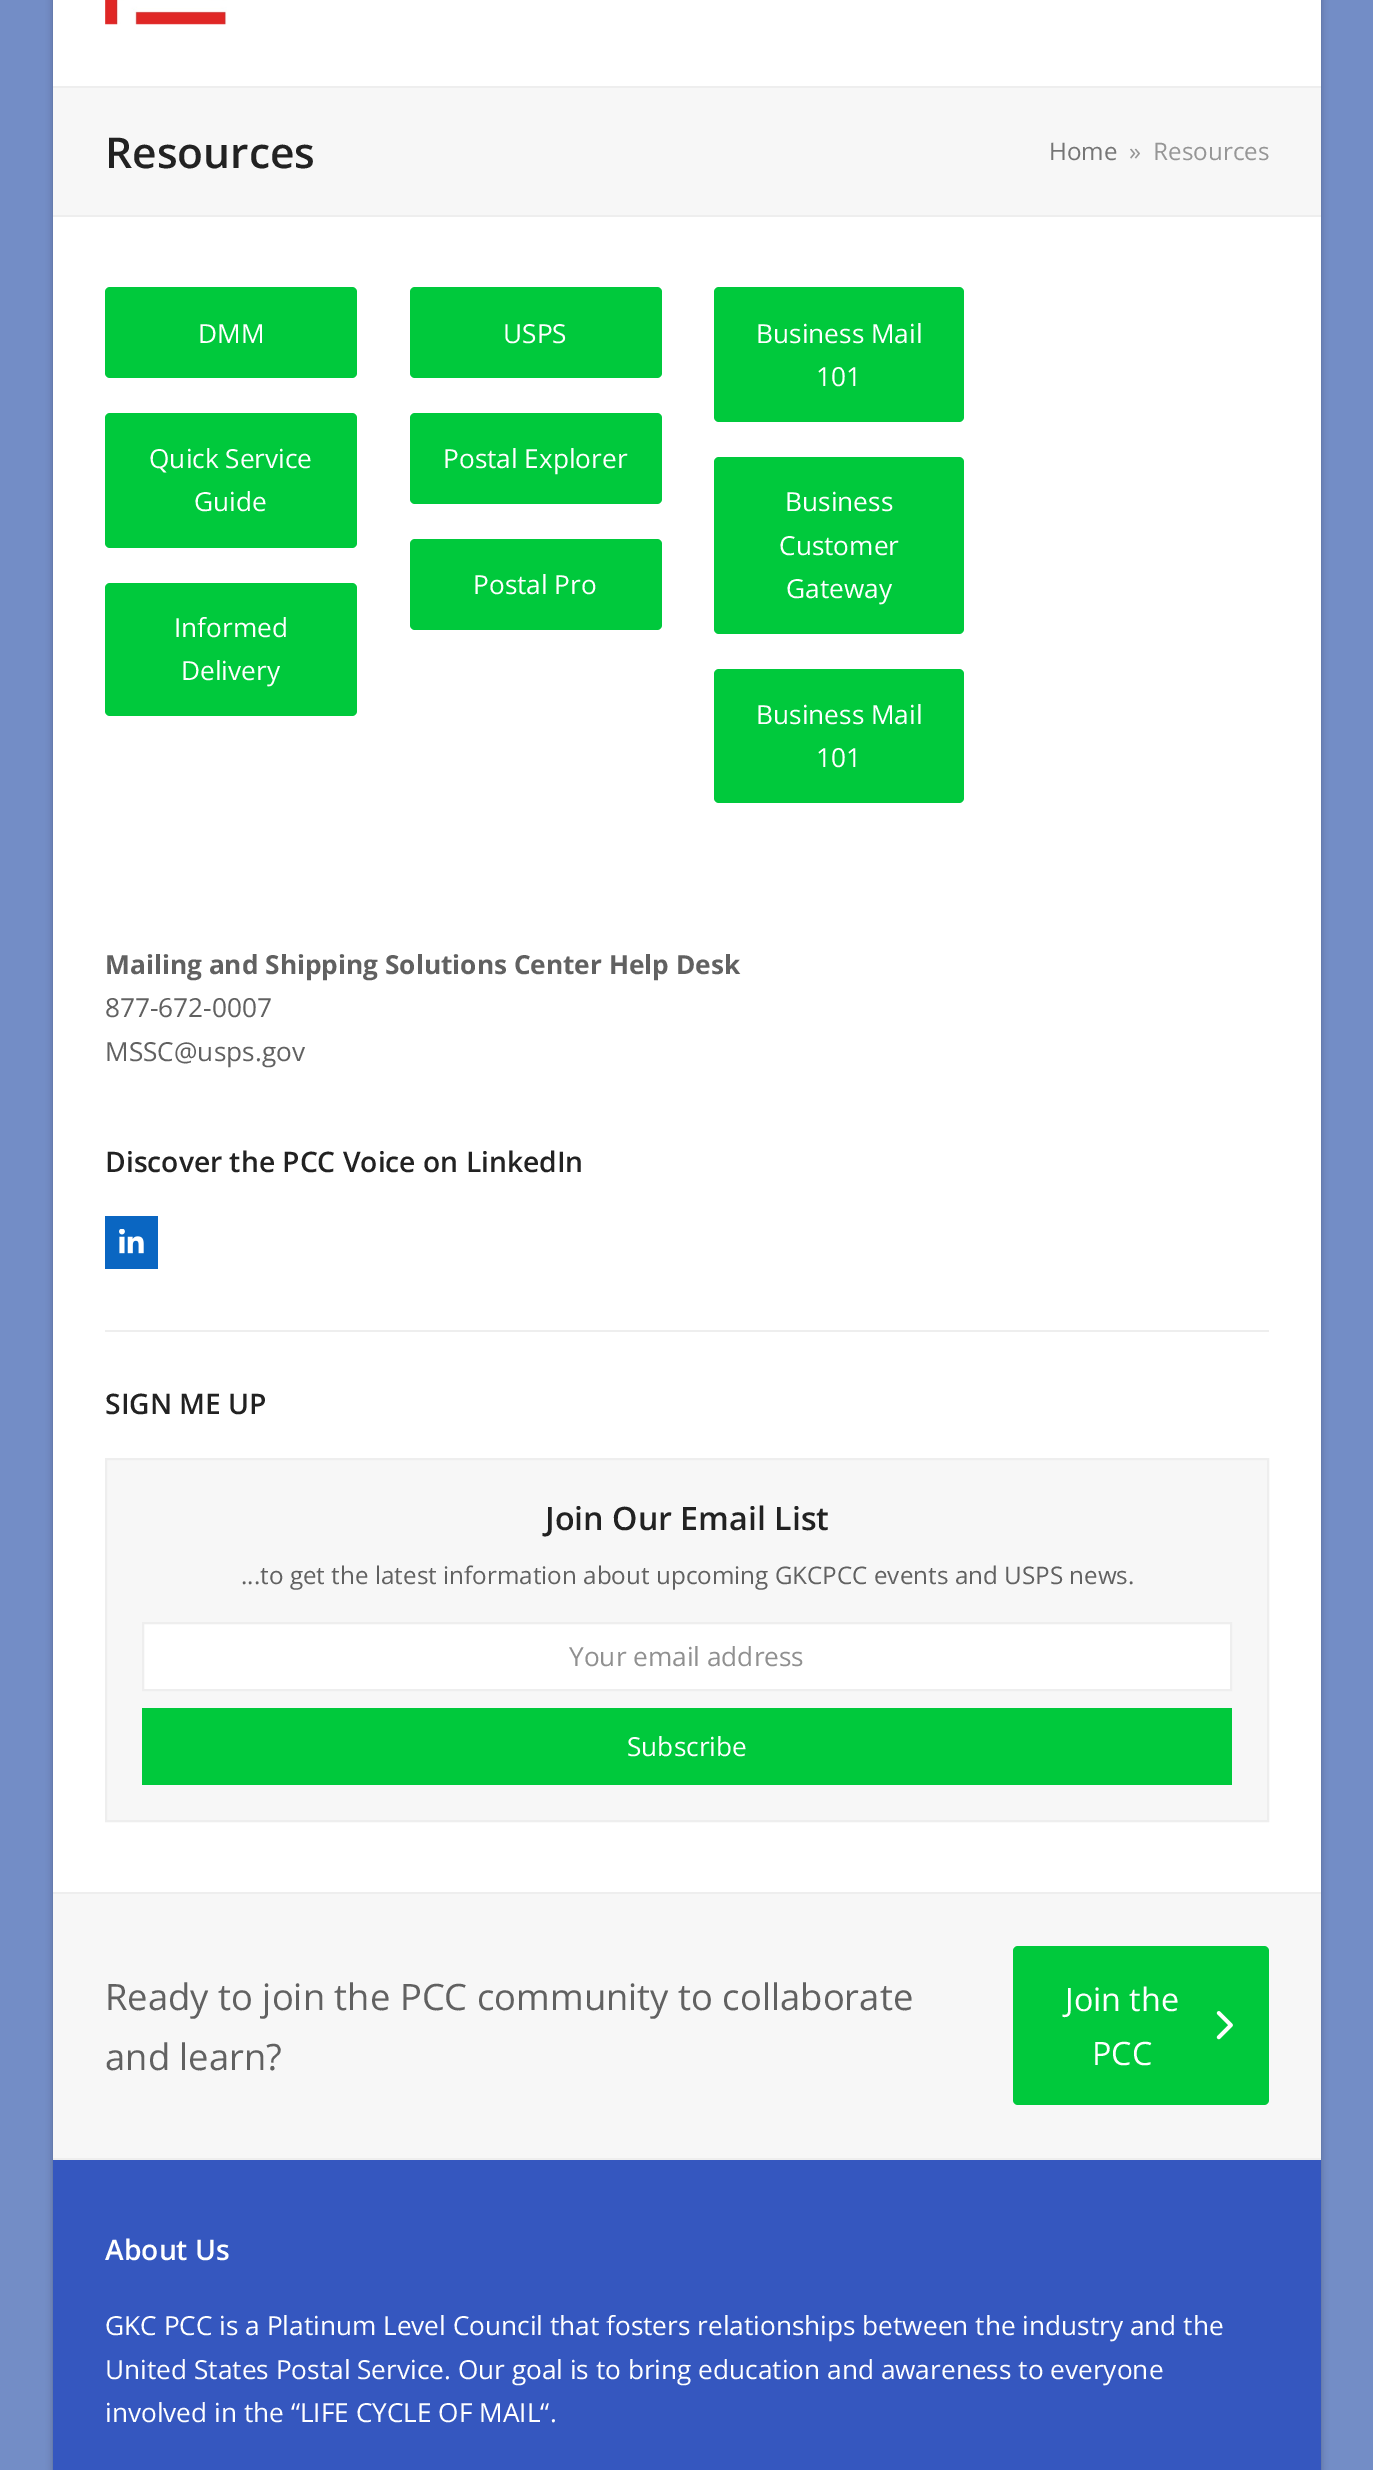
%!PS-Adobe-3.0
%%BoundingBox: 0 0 1373 2470
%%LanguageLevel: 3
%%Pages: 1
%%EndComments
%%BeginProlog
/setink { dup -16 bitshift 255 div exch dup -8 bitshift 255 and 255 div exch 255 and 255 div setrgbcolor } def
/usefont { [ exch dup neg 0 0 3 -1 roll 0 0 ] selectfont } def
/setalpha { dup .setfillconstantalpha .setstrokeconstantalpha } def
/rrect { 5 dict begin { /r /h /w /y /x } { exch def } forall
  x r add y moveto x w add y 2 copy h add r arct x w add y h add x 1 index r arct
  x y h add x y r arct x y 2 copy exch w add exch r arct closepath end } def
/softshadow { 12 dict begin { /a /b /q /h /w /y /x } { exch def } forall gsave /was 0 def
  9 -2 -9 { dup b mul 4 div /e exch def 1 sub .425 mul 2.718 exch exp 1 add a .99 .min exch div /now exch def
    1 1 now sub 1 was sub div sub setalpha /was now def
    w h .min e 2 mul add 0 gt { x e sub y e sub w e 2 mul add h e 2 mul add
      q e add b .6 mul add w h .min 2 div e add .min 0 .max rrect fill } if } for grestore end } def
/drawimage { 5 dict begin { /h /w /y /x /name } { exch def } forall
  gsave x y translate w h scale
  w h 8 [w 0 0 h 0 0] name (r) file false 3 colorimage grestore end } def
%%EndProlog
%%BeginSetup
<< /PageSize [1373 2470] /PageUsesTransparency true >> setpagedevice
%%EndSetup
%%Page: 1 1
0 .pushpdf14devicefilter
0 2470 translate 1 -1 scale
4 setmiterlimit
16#738DC6 setink
0 0 1373 2470 rectfill
16#000000 setink
53 -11 1268 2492 0 3.5 0.25 softshadow
16#FFFFFF setink
53 0 1268 1892 rectfill
(img1.raw) 105 0 122 25 drawimage
[
    [53 88 1268 127 16#F7F7F7]
    [53 86 1268 2 16#EEEEEE]
    [53 215 1268 2 16#EEEEEE]
] { aload pop setink rectfill } forall
/OpenSans-SemiBold 42.5 usefont
16#222222 setink
105 168 moveto (Resources) show
/OpenSans-Regular 24.25 usefont
16#757575 setink
1049 160 moveto (Home) show
16#969696 setink
1129 160 moveto (») show
1153 160 moveto (Resources) show
16#00C93C setink
105 287 252 91 5 rrect fill
/OpenSans-Regular 26.25 usefont
16#FFFFFF setink
198 343 moveto (DMM) show
16#00C93C setink
105 413 252 135 5 rrect fill
16#FFFFFF setink
149 468 moveto (Quick Service) show
194 511 moveto (Guide) show
16#00C93C setink
105 583 252 133 5 rrect fill
16#FFFFFF setink
174 637 moveto (Informed) show
181 680 moveto (Delivery) show
16#00C93C setink
410 287 252 91 5 rrect fill
16#FFFFFF setink
503 343 moveto (USPS) show
16#00C93C setink
410 413 252 91 5 rrect fill
16#FFFFFF setink
443 468 moveto (Postal Explorer) show
16#00C93C setink
410 539 252 91 5 rrect fill
16#FFFFFF setink
473 594 moveto (Postal Pro) show
16#00C93C setink
714 287 250 135 5 rrect fill
16#FFFFFF setink
756 343 moveto (Business Mail) show
816 386 moveto (101) show
16#00C93C setink
714 457 250 177 5 rrect fill
16#FFFFFF setink
[
    [(Business) 785 511]
    [(Customer) 779 555]
    [(Gateway) 786 598]
] { aload pop moveto show } forall
16#00C93C setink
714 669 250 134 5 rrect fill
16#FFFFFF setink
756 724 moveto (Business Mail) show
816 767 moveto (101) show
/OpenSans-Bold 26.25 usefont
16#616161 setink
105 974 moveto (Mailing and Shipping Solutions Center Help Desk) show
/OpenSans-Regular 26.25 usefont
105 1017 moveto (877-672-0007) show
105 1061 moveto (MSSC@usps.gov) show
/OpenSans-SemiBold 28.25 usefont
16#222222 setink
105 1172 moveto (Discover the PCC Voice on LinkedIn) show
16#0A66C2 setink
105 1216 53 53 rectfill
(img2.raw) 119 1229 25 25 drawimage
16#EEEEEE setink
105 1330 1164 2 rectfill
16#222222 setink
105 1414 moveto (SIGN ME UP) show
16#F7F7F7 setink
106 1459 moveto 1268 1459 lineto 1268 1821 lineto 106 1821 lineto closepath gsave fill grestore
16#EEEEEE setink
2 setlinewidth
stroke
/OpenSans-SemiBold 32.25 usefont
16#222222 setink
545 1530 moveto (Join Our Email List) show
/OpenSans-Regular 24.25 usefont
16#616161 setink
241 1584 moveto (...to get the latest information about upcoming GKCPCC events and USPS news.) show
16#FFFFFF setink
143 1623 moveto 1231 1623 lineto 1231 1690 lineto 143 1690 lineto closepath gsave fill grestore
16#EEEEEE setink
stroke
/OpenSans-Regular 26.25 usefont
16#909090 setink
569 1666 moveto (Your email address) show
16#00C93C setink
142 1708 1090 77 rectfill
16#FFFFFF setink
627 1756 moveto (Subscribe) show
[
    [53 1894 1268 264 16#F7F7F7]
    [53 1892 1268 2 16#EEEEEE]
    [53 2158 1268 2 16#EEEEEE]
] { aload pop setink rectfill } forall
/OpenSans-Regular 36.4 usefont
16#616161 setink
105 2010 moveto (Ready to join the PCC community to collaborate) show
105 2070 moveto (and learn?) show
16#00C93C setink
1013 1946 256 159 5 rrect fill
/OpenSans-Regular 32.25 usefont
16#FFFFFF setink
1065 2011 moveto (Join the) show
1092 2065 moveto (PCC) show
(img3.raw) 1216 2011 17 29 drawimage
16#3557BF setink
53 2160 1268 310 rectfill
/OpenSans-SemiBold 28.25 usefont
16#FFFFFF setink
105 2260 moveto (About Us) show
/OpenSans-Regular 26.25 usefont
[
    [(GKC PCC is a Platinum Level Council that fosters relationships between the industry and the) 105 2335]
    [(United States Postal Service. Our goal is to bring education and awareness to everyone) 105 2379]
    [(involved in the “LIFE CYCLE OF MAIL“.) 105 2422]
] { aload pop moveto show } forall
.poppdf14devicefilter showpage
%%EOF
